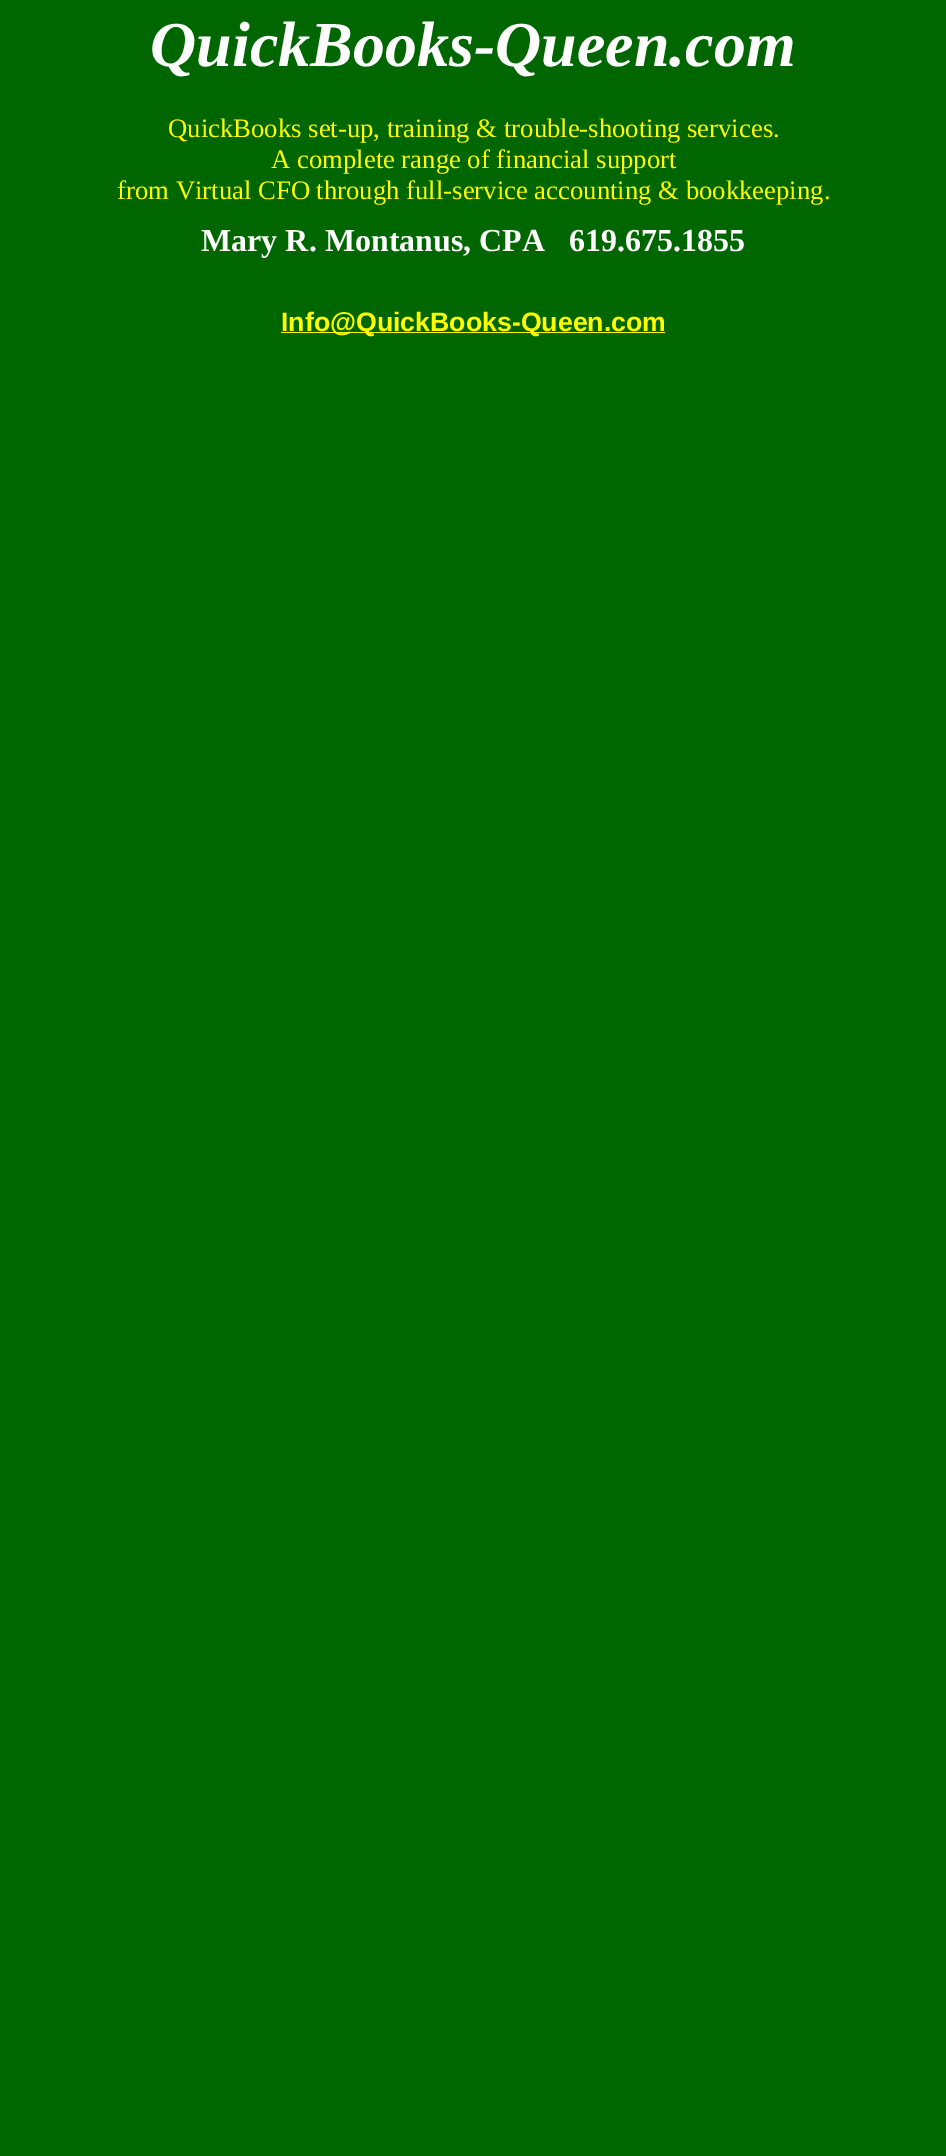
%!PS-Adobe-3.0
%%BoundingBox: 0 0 946 2156
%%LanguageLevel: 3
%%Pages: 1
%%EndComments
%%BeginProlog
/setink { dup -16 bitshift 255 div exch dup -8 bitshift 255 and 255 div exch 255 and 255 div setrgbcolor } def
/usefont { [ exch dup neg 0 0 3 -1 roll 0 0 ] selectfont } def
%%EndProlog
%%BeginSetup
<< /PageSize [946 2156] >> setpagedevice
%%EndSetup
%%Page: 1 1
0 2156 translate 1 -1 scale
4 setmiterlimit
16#006600 setink
0 0 946 2156 rectfill
/LiberationSerif-BoldItalic 64 usefont
16#FFFFFF setink
150 66 moveto (QuickBooks-Queen.com) show
/LiberationSerif-Regular 26.7 usefont
16#FFFF00 setink
[
    [(QuickBooks set-up, training & trouble-shooting services.) 168 137]
    [(A complete range of financial support) 271 168]
    [(from Virtual CFO through full-service accounting & bookkeeping.) 117 199]
] { aload pop moveto show } forall
/LiberationSerif-Bold 32 usefont
16#FFFFFF setink
201 251 moveto (Mary R. Montanus, CPA) show
569 251 moveto (619.675.1855) show
16#FFFF00 setink
281 332 384 1 rectfill
/LiberationSans-Bold 26.7 usefont
281 331 moveto (Info@QuickBooks-Queen.com) show
showpage
%%EOF
